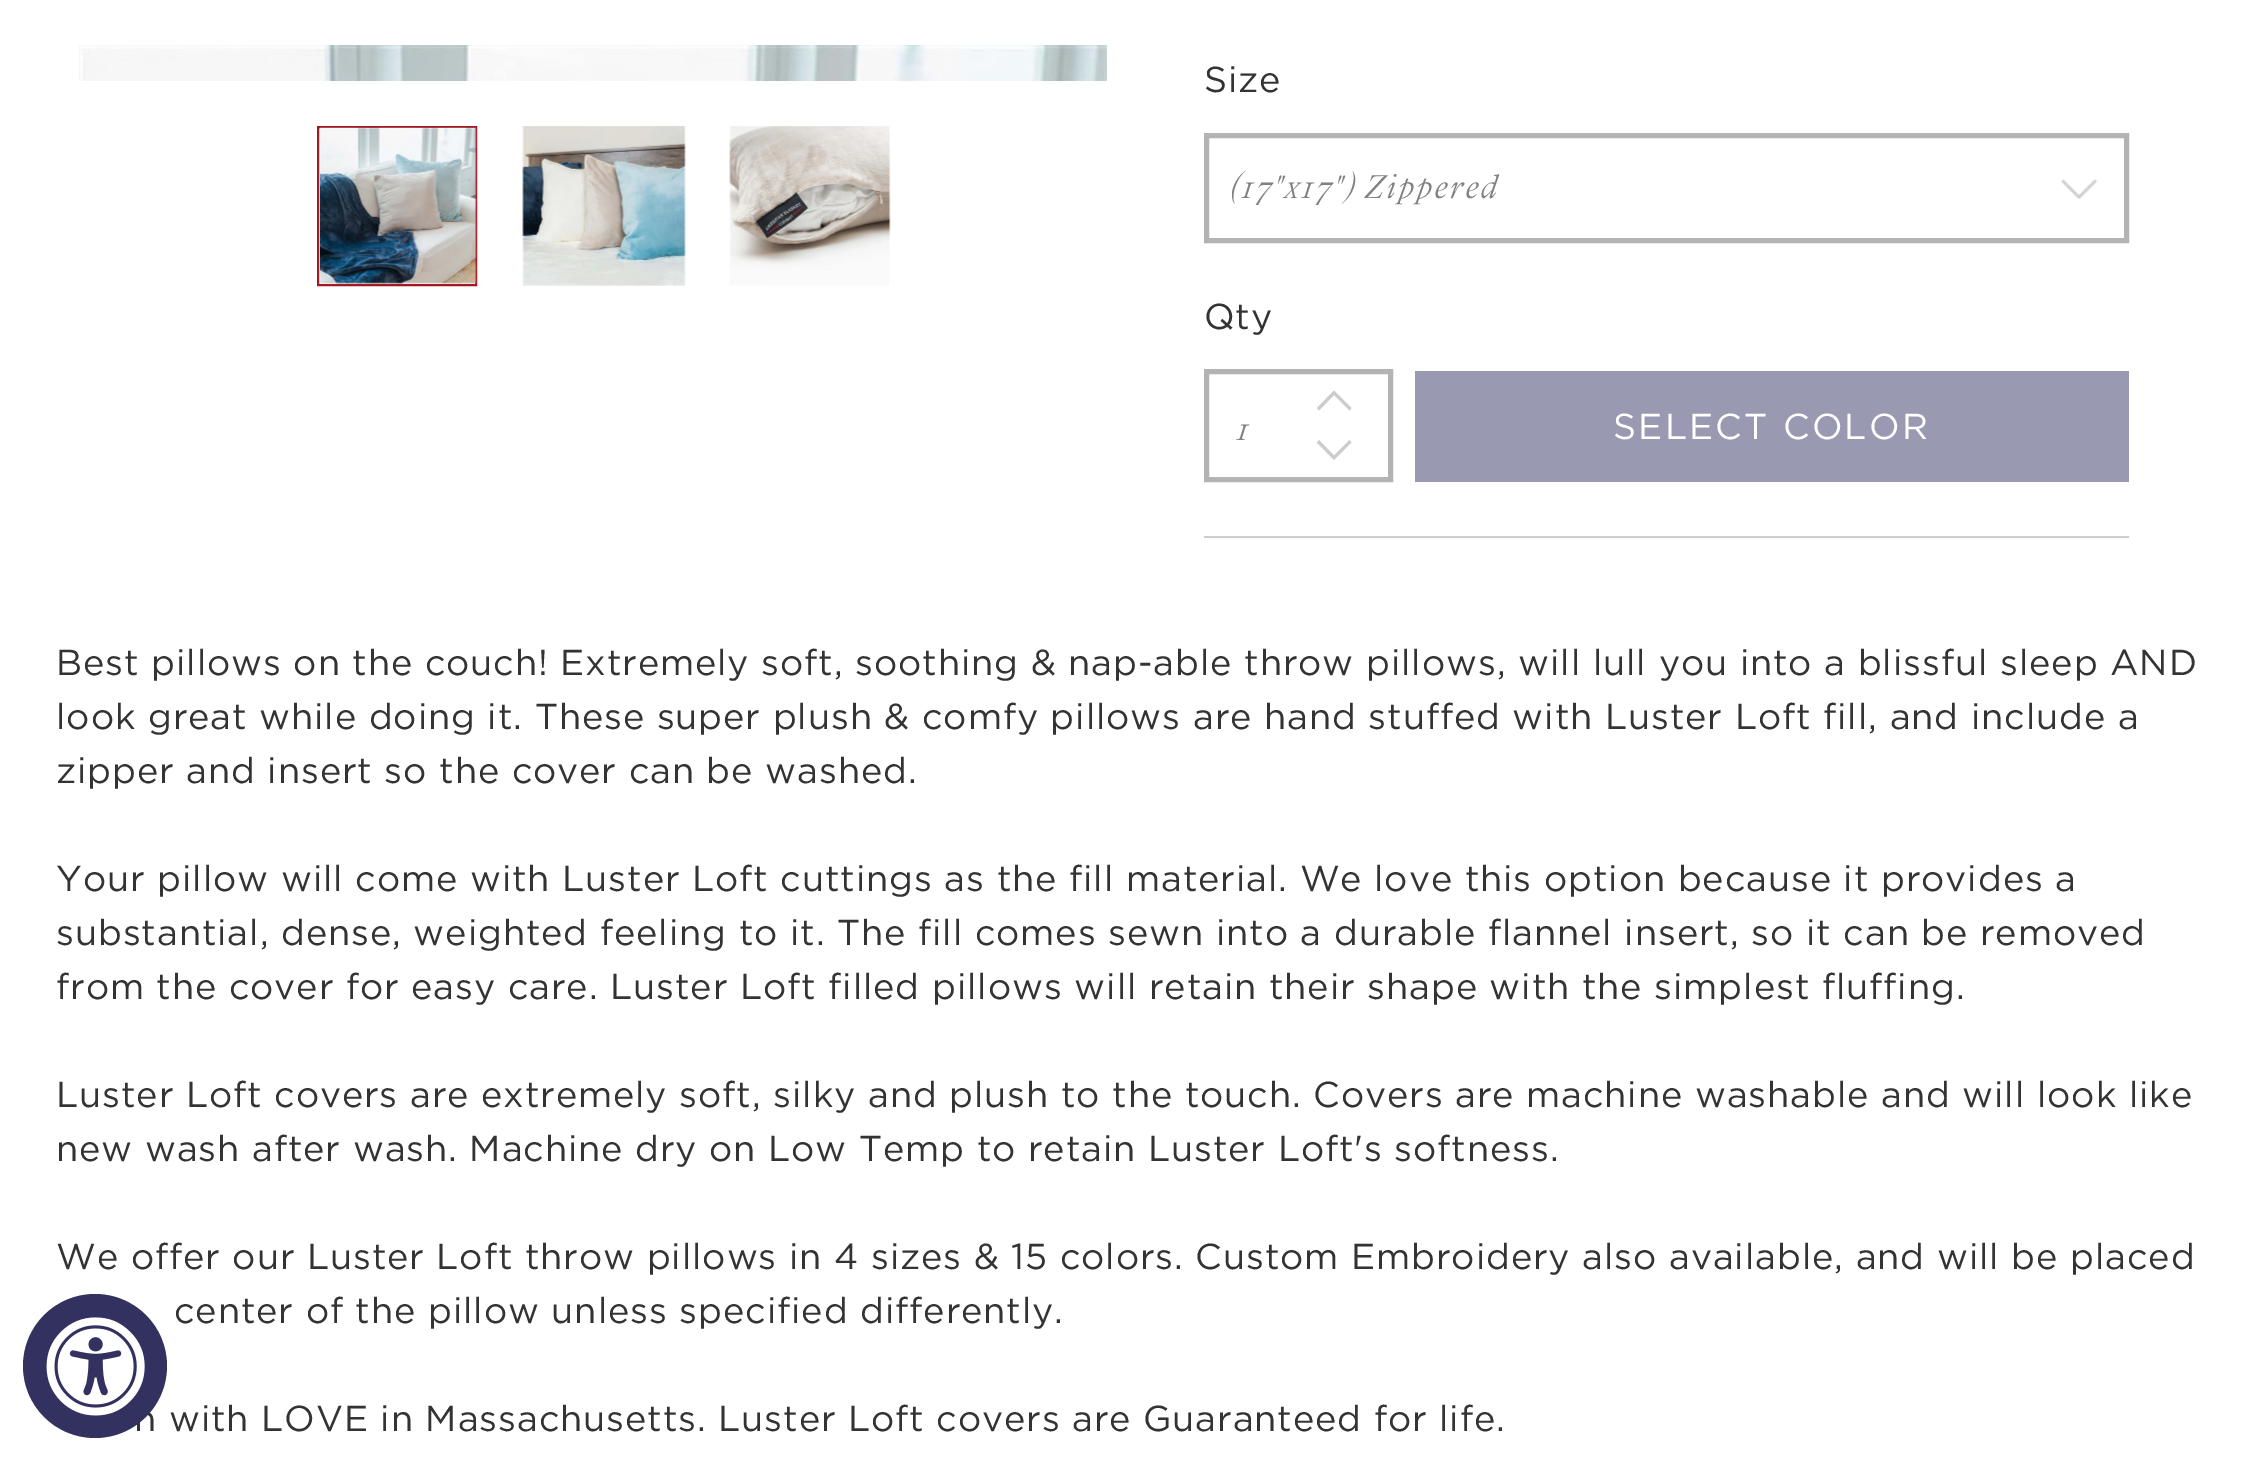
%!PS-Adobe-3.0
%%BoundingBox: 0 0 2258 1460
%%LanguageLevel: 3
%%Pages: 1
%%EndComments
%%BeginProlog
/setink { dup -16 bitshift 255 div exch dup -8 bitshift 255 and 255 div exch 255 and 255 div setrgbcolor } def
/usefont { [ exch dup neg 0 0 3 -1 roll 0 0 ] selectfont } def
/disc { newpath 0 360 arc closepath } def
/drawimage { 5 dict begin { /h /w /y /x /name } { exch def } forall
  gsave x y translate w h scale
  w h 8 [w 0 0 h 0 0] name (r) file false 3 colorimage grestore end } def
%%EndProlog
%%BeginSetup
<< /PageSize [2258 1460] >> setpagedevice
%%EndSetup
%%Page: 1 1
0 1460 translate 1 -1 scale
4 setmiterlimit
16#FFFFFF setink
0 0 2258 1460 rectfill
(img1.raw) 79 45 1028 36 drawimage
16#A31923 setink
2 setlinewidth
318 127 158 158 rectstroke
(img2.raw) 320 127 157 157 drawimage
(img3.raw) 522 126 164 160 drawimage
(img4.raw) 729 126 162 160 drawimage
16#CCCDD3 setink
1204 536 925 2 rectfill
/Gotham-Regular 36 usefont
16#333333 setink
1204 92 moveto 0.9 0 (Size) ashow
(img5.raw) 2061 179 37 20 drawimage
16#B3B3B3 setink
5 setlinewidth
1206.5 135.5 920 105 rectstroke
/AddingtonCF-ThinItalic 36 usefont
16#808080 setink
1231 198 moveto 2.25 0 (\(17"x17"\) Zippered) ashow
/Gotham-Regular 36 usefont
16#333333 setink
1204 329 moveto 0.9 0 (Qty) ashow
16#B3B3B3 setink
1206.5 371.5 184 108 rectstroke
16#CCCCCC setink
1349.5 410.5 moveto 1334 395 lineto 1319 410.5 lineto 1317 408 lineto 1334 390.5 lineto 1351.5 408 lineto closepath fill
/AddingtonCF-ThinItalic 36 usefont
16#808080 setink
1237 440 moveto 2.25 0 (1) ashow
16#CCCCCC setink
1334 460 moveto 1317 442.5 lineto 1319 440 lineto 1334 455.5 lineto 1349.5 440 lineto 1351.5 442.5 lineto closepath fill
16#999AB2 setink
1415 371 714 111 rectfill
/Gotham-Regular 36 usefont
16#FFFFFF setink
1613 439 moveto 2.25 0 (SELECT COLOR) ashow
16#333333 setink
56 675 moveto 0.9 0 (Best pillows on the couch! Extremely soft, soothing & nap-able throw pillows, will lull you into a blissful sleep AND) ashow
56 729 moveto 0.9 0 (look great while doing it. These super plush & comfy pillows are hand stuffed with Luster Loft fill, and include a) ashow
56 783 moveto 0.9 0 (zipper and insert so the cover can be washed.) ashow
56 891 moveto 0.9 0 (Your pillow will come with Luster Loft cuttings as the fill material. We love this option because it provides a) ashow
56 945 moveto 0.9 0 (substantial, dense, weighted feeling to it. The fill comes sewn into a durable flannel insert, so it can be removed) ashow
56 999 moveto 0.9 0 (from the cover for easy care. Luster Loft filled pillows will retain their shape with the simplest fluffing.) ashow
56 1107 moveto 0.9 0 (Luster Loft covers are extremely soft, silky and plush to the touch. Covers are machine washable and will look like) ashow
56 1161 moveto 0.9 0 (new wash after wash. Machine dry on Low Temp to retain Luster Loft's softness.) ashow
56 1269 moveto 0.9 0 (We offer our Luster Loft throw pillows in 4 sizes & 15 colors. Custom Embroidery also available, and will be placed) ashow
174 1323 moveto 0.9 0 (center of the pillow unless specified differently.) ashow
134 1431 moveto 0.9 0 (n with LOVE in Massachusetts. Luster Loft covers are Guaranteed for life.) ashow
16#323160 setink
95 1366 72 disc fill
(img6.raw) 46 1317 99 99 drawimage
showpage
%%EOF
